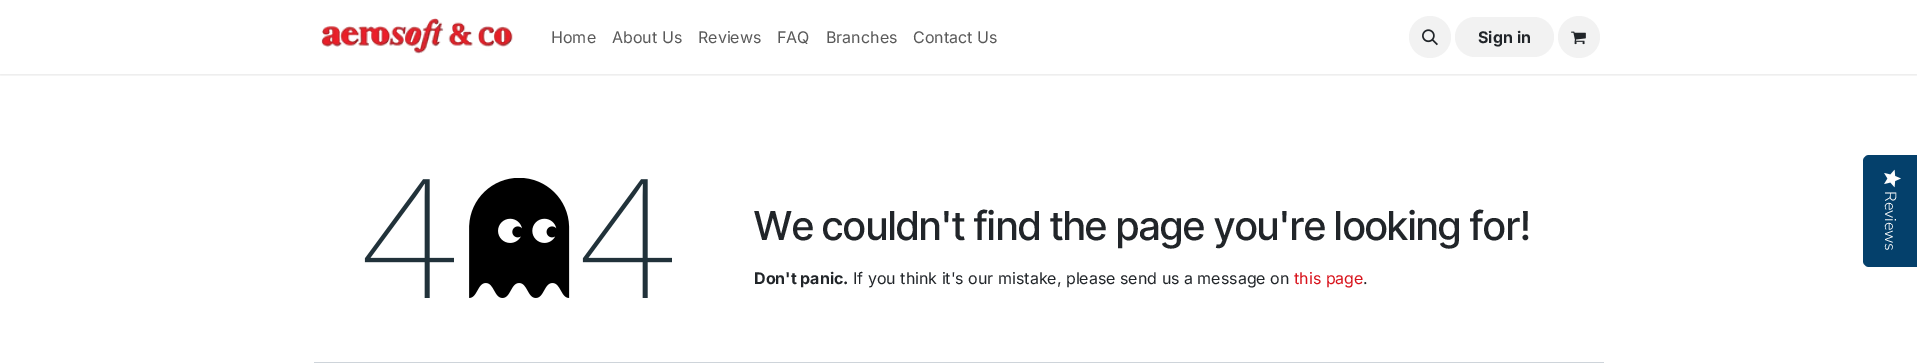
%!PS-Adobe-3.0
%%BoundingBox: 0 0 1917 364
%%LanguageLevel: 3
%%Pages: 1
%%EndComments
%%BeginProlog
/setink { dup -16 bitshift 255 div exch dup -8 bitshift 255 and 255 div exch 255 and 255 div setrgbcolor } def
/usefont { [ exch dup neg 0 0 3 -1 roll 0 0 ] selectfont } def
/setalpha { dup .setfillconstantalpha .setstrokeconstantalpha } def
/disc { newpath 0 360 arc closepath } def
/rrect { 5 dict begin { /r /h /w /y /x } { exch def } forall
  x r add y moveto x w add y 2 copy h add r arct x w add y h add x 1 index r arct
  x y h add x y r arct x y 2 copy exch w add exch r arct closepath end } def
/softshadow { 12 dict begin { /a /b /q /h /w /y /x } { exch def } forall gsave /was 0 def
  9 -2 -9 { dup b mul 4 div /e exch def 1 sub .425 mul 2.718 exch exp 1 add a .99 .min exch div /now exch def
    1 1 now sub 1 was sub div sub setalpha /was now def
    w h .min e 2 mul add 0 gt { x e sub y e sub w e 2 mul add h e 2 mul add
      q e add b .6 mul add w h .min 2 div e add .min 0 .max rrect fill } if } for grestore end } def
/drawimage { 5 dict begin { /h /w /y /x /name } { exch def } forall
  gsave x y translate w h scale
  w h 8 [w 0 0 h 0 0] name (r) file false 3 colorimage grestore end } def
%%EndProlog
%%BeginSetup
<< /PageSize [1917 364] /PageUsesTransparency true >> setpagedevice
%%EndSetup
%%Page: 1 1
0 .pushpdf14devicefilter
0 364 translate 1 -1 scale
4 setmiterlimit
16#FFFFFF setink
0 0 1917 364 rectfill
gsave
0 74 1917 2 rectclip
16#000000 setink
0 1 1917 74 0 1.5 0.1 softshadow
grestore
(img1.raw) 321 18 192 36 drawimage
/Inter-Regular 16 usefont
16#595959 setink
[
    [(Home) 551 43]
    [(About Us) 612 43]
    [(Reviews) 698 43]
    [(FAQ) 777 43]
    [(Branches) 826 43]
    [(Contact Us) 913 43]
] { aload pop moveto show } forall
16#F2F2F2 setink
1430 37 21 disc fill
(img2.raw) 1422 29 16 17 drawimage
1455 17 99 40 20 rrect fill
/Inter-Bold 16 usefont
16#212529 setink
1478 43 moveto (Sign in) show
16#F2F2F2 setink
1579 37 21 disc fill
(img3.raw) 1571 31 15 14 drawimage
(img4.raw) 364 178 308 120 drawimage
/InterTight-Medium 40 usefont
16#212529 setink
754 240 moveto (We couldn't find the page you're looking for!) show
/Inter-Bold 16 usefont
754 284 moveto (Don't panic.) show
/Inter-Regular 16 usefont
853 284 moveto (If you think it's our mistake, please send us a message on) show
16#D8121B setink
1294 284 moveto (this page) show
16#212529 setink
1363 284 moveto (.) show
16#CED4DA setink
314 362 1290 1 rectfill
16#04406B setink
1917 155 moveto 1917 267 lineto 1869 267 lineto 1866 267 1863 264 1863 261 curveto 1863 161 lineto 1863 158 1866 155 1869 155 curveto closepath fill
(img5.raw) 1884 169 17 19 drawimage
/NunitoSans-Light 16 usefont
16#FEFEFE setink
gsave 1885 191 translate 90 rotate 0 0 moveto (Reviews) show grestore
.poppdf14devicefilter showpage
%%EOF
